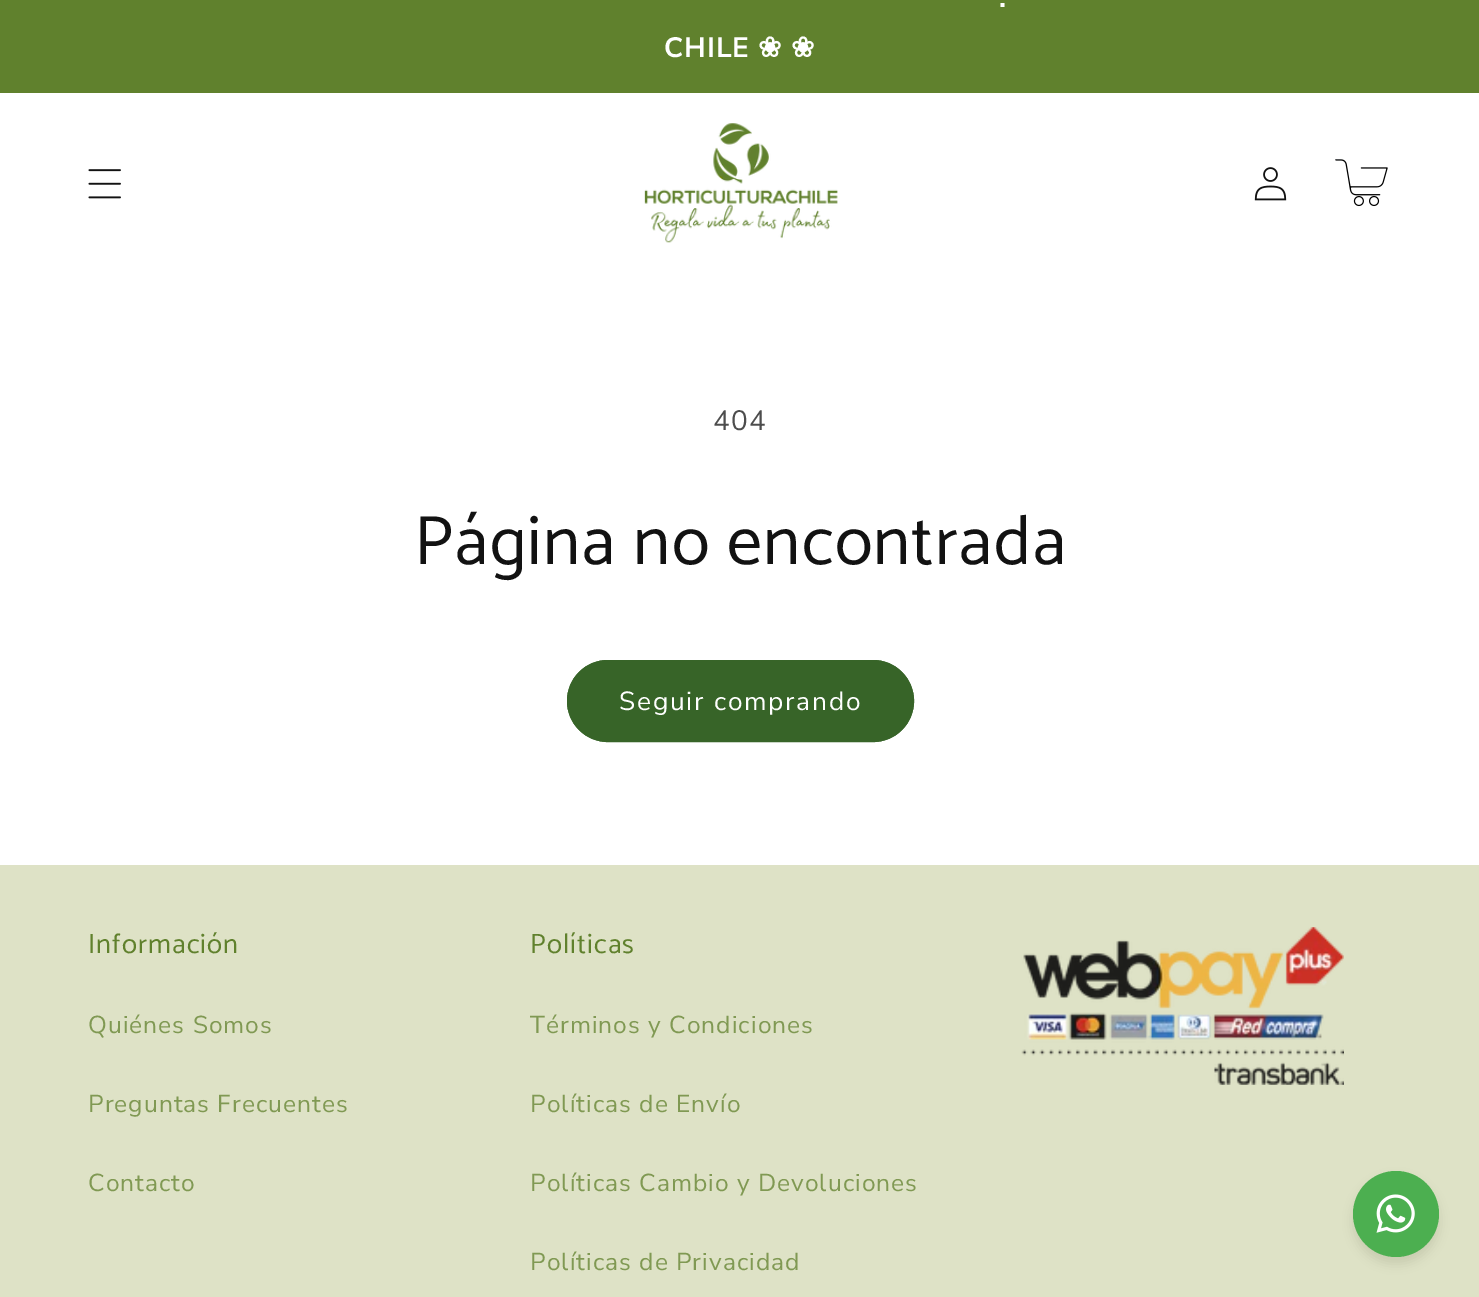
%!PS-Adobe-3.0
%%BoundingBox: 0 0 1479 1297
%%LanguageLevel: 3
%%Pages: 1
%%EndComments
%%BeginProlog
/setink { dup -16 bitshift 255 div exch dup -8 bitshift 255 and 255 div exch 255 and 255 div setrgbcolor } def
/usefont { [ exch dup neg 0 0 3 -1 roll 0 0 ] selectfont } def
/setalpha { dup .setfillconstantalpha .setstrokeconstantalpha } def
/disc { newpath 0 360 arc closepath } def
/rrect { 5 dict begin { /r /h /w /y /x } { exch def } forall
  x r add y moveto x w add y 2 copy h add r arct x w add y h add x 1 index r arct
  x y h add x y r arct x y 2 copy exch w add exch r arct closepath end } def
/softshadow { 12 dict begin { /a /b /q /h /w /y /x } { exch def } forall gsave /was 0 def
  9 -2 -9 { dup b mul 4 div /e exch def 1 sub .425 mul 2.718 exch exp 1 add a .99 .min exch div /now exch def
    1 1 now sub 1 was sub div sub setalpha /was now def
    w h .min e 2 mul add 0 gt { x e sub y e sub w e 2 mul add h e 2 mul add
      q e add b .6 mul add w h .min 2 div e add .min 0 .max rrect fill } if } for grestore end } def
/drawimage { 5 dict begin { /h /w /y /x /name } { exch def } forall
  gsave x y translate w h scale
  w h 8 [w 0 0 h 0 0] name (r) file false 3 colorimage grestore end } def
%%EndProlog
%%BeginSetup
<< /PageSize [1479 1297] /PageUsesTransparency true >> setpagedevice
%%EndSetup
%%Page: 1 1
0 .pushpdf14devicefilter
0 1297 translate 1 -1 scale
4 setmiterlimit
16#FFFFFF setink
0 0 1479 1297 rectfill
16#60812D setink
0 0 1479 93 rectfill
/NunitoSans-Bold 28 usefont
16#FFFFFF setink
999 7 moveto 1.05 0 (.) ashow
664 57 moveto 1.05 0 (CHILE) ashow
/DejaVuSans-Bold 28 usefont
758 57 moveto -1 0 32 1.05 0 (❀ ❀) awidthshow
(img1.raw) 88 169 33 30 drawimage
(img2.raw) 644 123 194 120 drawimage
(img3.raw) 1254 167 33 34 drawimage
(img4.raw) 1335 159 53 48 drawimage
/NunitoSans-Regular 28 usefont
16#4D4D4D setink
713 430 moveto 1.05 0 (404) ashow
/Catamaran-Regular 70 usefont
16#121212 setink
414 564 moveto 1.05 0 (Página no encontrada) ashow
16#376428 setink
567 660 347 82 41 rrect fill
2 setlinewidth
568 661 345 80 40 rrect stroke
/NunitoSans-Regular 26.25 usefont
16#FFFFFF setink
619 710 moveto 1.75 0 (Seguir comprando) ashow
16#DEE2C6 setink
0 865 1479 432 rectfill
/Catamaran-Regular 28 usefont
16#60812D setink
88 953 moveto 1.05 0 (Información) ashow
/NunitoSans-Regular 24.5 usefont
16#809953 setink
88 1033 moveto 1.05 0 (Quiénes Somos) ashow
88 1112 moveto 1.05 0 (Preguntas Frecuentes) ashow
88 1191 moveto 1.05 0 (Contacto) ashow
/Catamaran-Regular 28 usefont
16#60812D setink
530 953 moveto 1.05 0 (Políticas) ashow
/NunitoSans-Regular 24.5 usefont
16#809953 setink
530 1033 moveto 1.05 0 (Términos y Condiciones) ashow
530 1112 moveto 1.05 0 (Políticas de Envío) ashow
530 1191 moveto 1.05 0 (Políticas Cambio y Devoluciones) ashow
530 1270 moveto 1.05 0 (Políticas de Privacidad) ashow
(img5.raw) 1021 927 323 158 drawimage
16#000000 setink
1353 1178 86 86 43 5 0.1 softshadow
16#4CAF50 setink
1396 1214 43 disc fill
(img6.raw) 1376 1194 39 39 drawimage
.poppdf14devicefilter showpage
%%EOF
